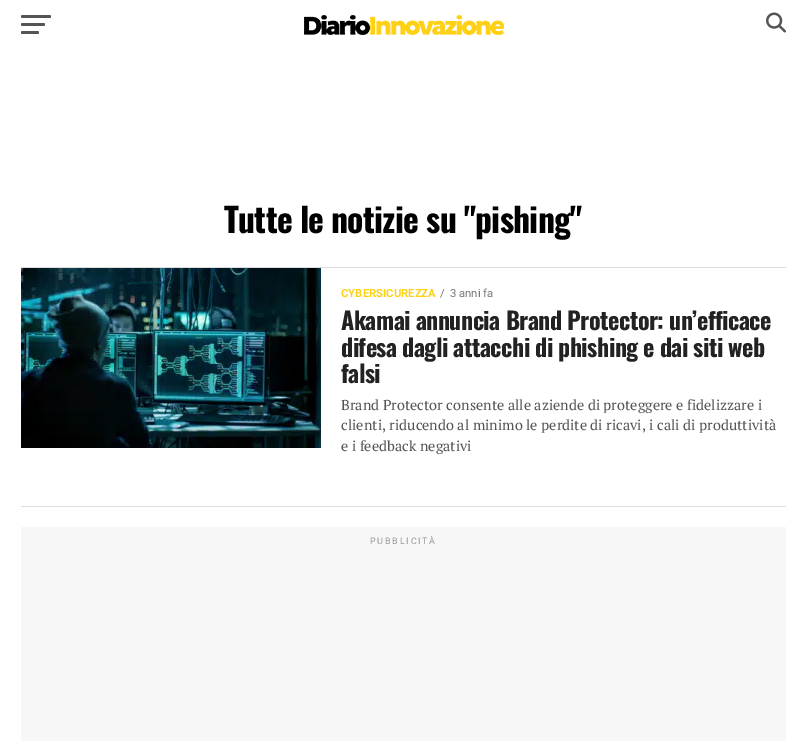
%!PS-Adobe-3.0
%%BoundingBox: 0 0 807 741
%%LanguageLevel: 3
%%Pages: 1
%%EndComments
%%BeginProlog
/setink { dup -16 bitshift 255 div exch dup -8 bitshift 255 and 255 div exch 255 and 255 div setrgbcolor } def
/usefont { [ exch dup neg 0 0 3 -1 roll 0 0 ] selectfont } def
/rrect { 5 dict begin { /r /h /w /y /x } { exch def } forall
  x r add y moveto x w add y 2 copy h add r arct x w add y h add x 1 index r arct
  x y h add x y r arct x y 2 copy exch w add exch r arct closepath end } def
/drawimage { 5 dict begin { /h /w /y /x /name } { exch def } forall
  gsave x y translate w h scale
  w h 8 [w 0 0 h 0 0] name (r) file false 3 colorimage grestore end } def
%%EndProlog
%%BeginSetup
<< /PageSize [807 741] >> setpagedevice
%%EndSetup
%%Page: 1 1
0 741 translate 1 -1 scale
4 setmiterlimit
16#FFFFFF setink
0 0 807 741 rectfill
16#555555 setink
21 15 30 3 1.5 rrect fill
21 23 24 3 1.5 rrect fill
21 31 18 3 1.5 rrect fill
(img1.raw) 304 15 200 21 drawimage
(img2.raw) 766 12 20 21 drawimage
/Oswald-Bold 33.6 usefont
16#000000 setink
224 233 moveto -0.7 0 (Tutte le notizie su "pishing") ashow
16#DDDDDD setink
21 267 765 1 rectfill
(img3.raw) 21 268 300 180 drawimage
/Roboto-Bold 11.25 usefont
16#FED116 setink
341 297 moveto (CYBERSICUREZZA) show
/Roboto-Regular 11.25 usefont
16#777777 setink
440 297 moveto (/) show
450 297 moveto (3 anni fa) show
/Oswald-Bold 24 usefont
16#222222 setink
341 330 moveto -0.5 0 (Akamai annuncia Brand Protector: un’efficace) ashow
341 357 moveto -0.5 0 (difesa dagli attacchi di phishing e dai siti web) ashow
341 383 moveto -0.5 0 (falsi) ashow
/PTSerif-Regular 14.4 usefont
16#555555 setink
[
    [(Brand Protector consente alle aziende di proteggere e fidelizzare i) 341 410]
    [(clienti, riducendo al minimo le perdite di ricavi, i cali di produttività) 341 430]
    [(e i feedback negativi) 341 451]
] { aload pop moveto show } forall
16#DDDDDD setink
21 506 765 1 rectfill
16#F7F7F7 setink
21 527 765 214 rectfill
/Roboto-Regular 9 usefont
16#999999 setink
370 544 moveto 1.75 0 (PUBBLICITÀ) ashow
showpage
%%EOF
